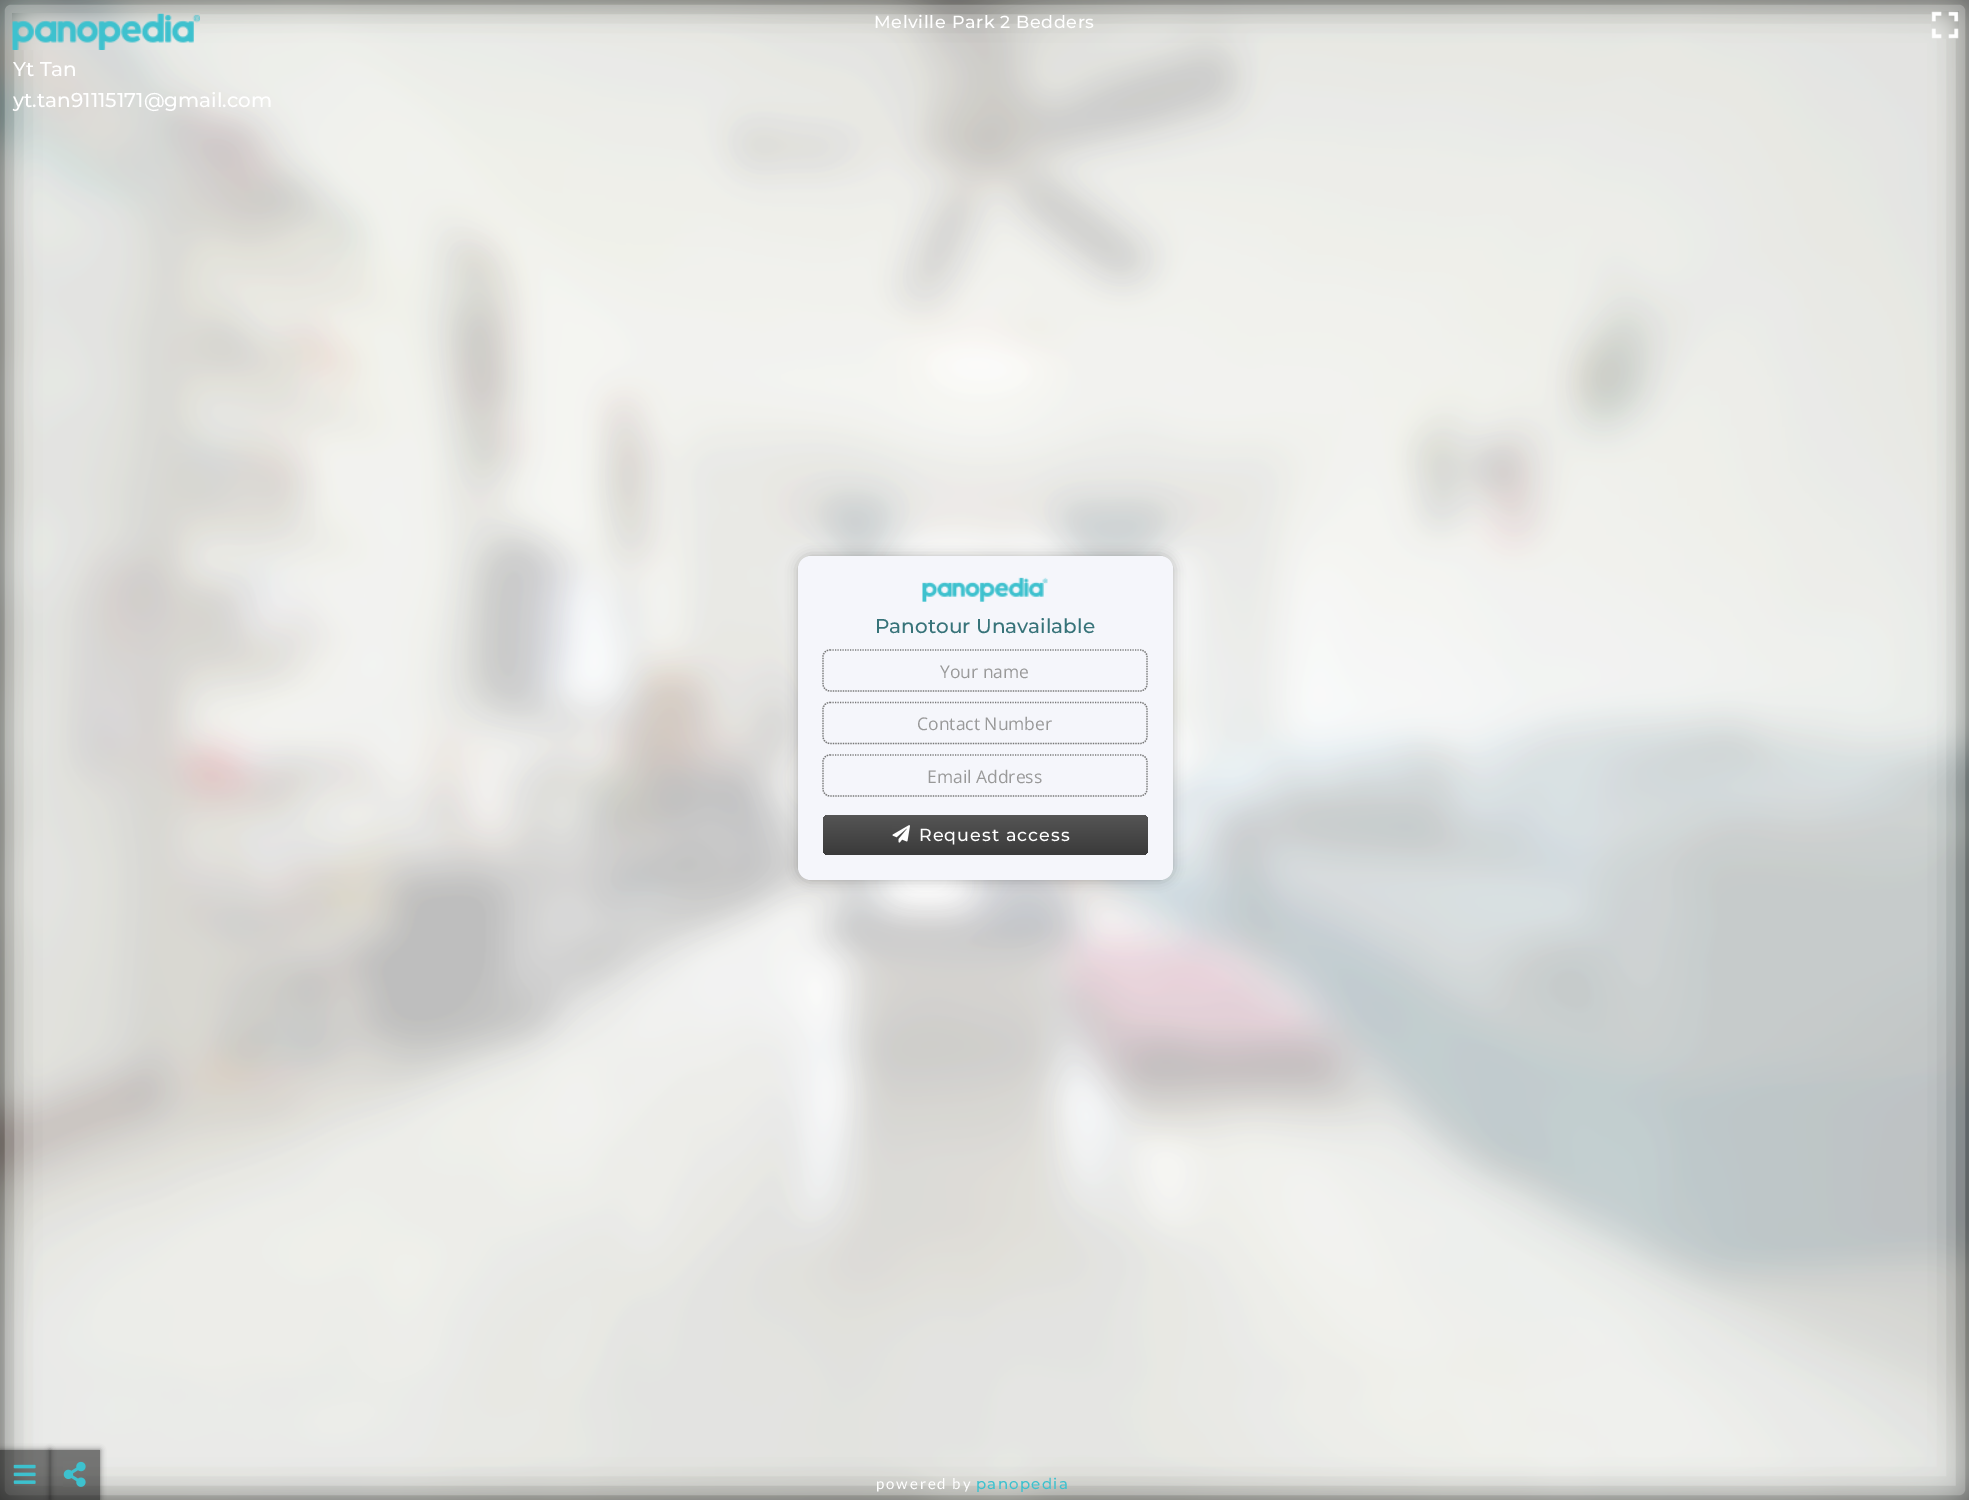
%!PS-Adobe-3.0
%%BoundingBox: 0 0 1969 1500
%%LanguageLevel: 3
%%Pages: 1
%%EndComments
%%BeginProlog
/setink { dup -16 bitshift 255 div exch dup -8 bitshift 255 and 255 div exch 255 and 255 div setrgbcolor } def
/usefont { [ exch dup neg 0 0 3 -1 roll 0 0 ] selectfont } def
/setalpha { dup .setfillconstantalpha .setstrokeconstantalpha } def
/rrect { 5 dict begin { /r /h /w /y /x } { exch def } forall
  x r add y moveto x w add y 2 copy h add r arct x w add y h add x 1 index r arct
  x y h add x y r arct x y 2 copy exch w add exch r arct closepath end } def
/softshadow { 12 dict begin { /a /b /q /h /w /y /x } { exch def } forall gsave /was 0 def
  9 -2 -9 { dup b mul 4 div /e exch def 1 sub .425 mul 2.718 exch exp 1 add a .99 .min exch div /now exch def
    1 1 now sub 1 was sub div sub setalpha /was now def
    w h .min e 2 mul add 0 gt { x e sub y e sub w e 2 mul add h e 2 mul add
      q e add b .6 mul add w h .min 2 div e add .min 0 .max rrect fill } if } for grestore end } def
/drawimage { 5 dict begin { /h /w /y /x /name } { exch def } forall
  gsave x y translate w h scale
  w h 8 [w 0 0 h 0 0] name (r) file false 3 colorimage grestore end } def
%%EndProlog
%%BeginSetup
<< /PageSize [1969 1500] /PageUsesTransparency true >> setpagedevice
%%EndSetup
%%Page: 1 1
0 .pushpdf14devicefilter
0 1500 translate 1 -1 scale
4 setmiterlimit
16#000000 setink
0 0 1969 1500 rectfill
(img1.raw) 0 0 1969 1500 drawimage
16#FFFFFF setink
0 0 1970 1500 0 19 0.75 softshadow
/Montserrat-Medium 17.5 usefont
874 28 moveto 0.6 0 (Melville Park 2 Bedders) ashow
(img2.raw) 1931 11 28 28 drawimage
(img3.raw) 12 13 188 37 drawimage
/Montserrat-Medium 20 usefont
13 76 moveto (Yt Tan) show
13 107 moveto (yt.tan91115171@gmail.com) show
16#000000 setink
798 556 375 324 13 6 0.25 softshadow
16#F5F6FB setink
798 556 375 324 13 rrect fill
(img4.raw) 922 577 126 25 drawimage
16#377379 setink
875 633 moveto (Panotour Unavailable) show
16#787878 setink
1.2 setlinewidth
[1.25 1.25] 0 setdash
830 650 moveto 1140 650 lineto 1144 650 1147 653 1147 656.5 curveto 1147 684 lineto 1147 688 1144 691 1140 691 curveto 830 691 lineto 826 691 823 688 823 684 curveto 823 656.5 lineto 823 653 826 650 830 650 curveto closepath stroke
/OpenSans-Regular 17.5 usefont
16#999999 setink
940 678 moveto (Your name) show
16#787878 setink
830 702.5 moveto 1140 702.5 lineto 1144 702.5 1147 705.5 1147 709 curveto 1147 736.5 lineto 1147 740.5 1144 743.5 1140 743.5 curveto 830 743.5 lineto 826 743.5 823 740.5 823 736.5 curveto 823 709 lineto 823 705.5 826 702.5 830 702.5 curveto closepath stroke
16#999999 setink
917 730 moveto (Contact Number) show
16#787878 setink
830 755 moveto 1140 755 lineto 1144 755 1147 758 1147 761.5 curveto 1147 789 lineto 1147 793 1144 796 1140 796 curveto 830 796 lineto 826 796 823 793 823 789 curveto 823 761.5 lineto 823 758 826 755 830 755 curveto closepath stroke
16#999999 setink
927 783 moveto (Email Address) show
gsave 823 815 325 40 5 rrect clip newpath
<< /ShadingType 2 /ColorSpace /DeviceRGB /Coords [985 855 985 815] /Extend [true true] /Function << /FunctionType 2 /Domain [0 1] /C0 [0.227 0.227 0.227] /C1 [0.333 0.333 0.333] /N 1 >> >> shfill grestore
(img5.raw) 892 825 18 18 drawimage
/Montserrat-Medium 17.5 usefont
16#FFFFFF setink
919 841 moveto 1 0 (Request access) ashow
gsave
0 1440 moveto 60 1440 lineto 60 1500 lineto 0 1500 lineto closepath 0 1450 moveto 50 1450 lineto 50 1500 lineto 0 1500 lineto closepath eoclip newpath
16#000000 setink
0 1450 50 50 0 3 0.5 softshadow
grestore
0.5 setalpha
16#000000 setink
0 1450 50 50 rectfill
1 setalpha
(img6.raw) 13 1464 23 20 drawimage
gsave
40 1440 moveto 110 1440 lineto 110 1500 lineto 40 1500 lineto closepath 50 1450 moveto 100 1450 lineto 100 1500 lineto 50 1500 lineto closepath eoclip newpath
50 1450 50 50 0 3 0.5 softshadow
grestore
0.5 setalpha
50 1450 50 50 rectfill
1 setalpha
(img7.raw) 63 1461 23 26 drawimage
/Lato-Regular 15 usefont
16#FFFFFF setink
876 1489 moveto 1.9 0 (powered by) ashow
/Montserrat-Medium 15 usefont
16#3DC1CE setink
976 1489 moveto 1.25 0 (panopedia) ashow
.poppdf14devicefilter showpage
%%EOF
